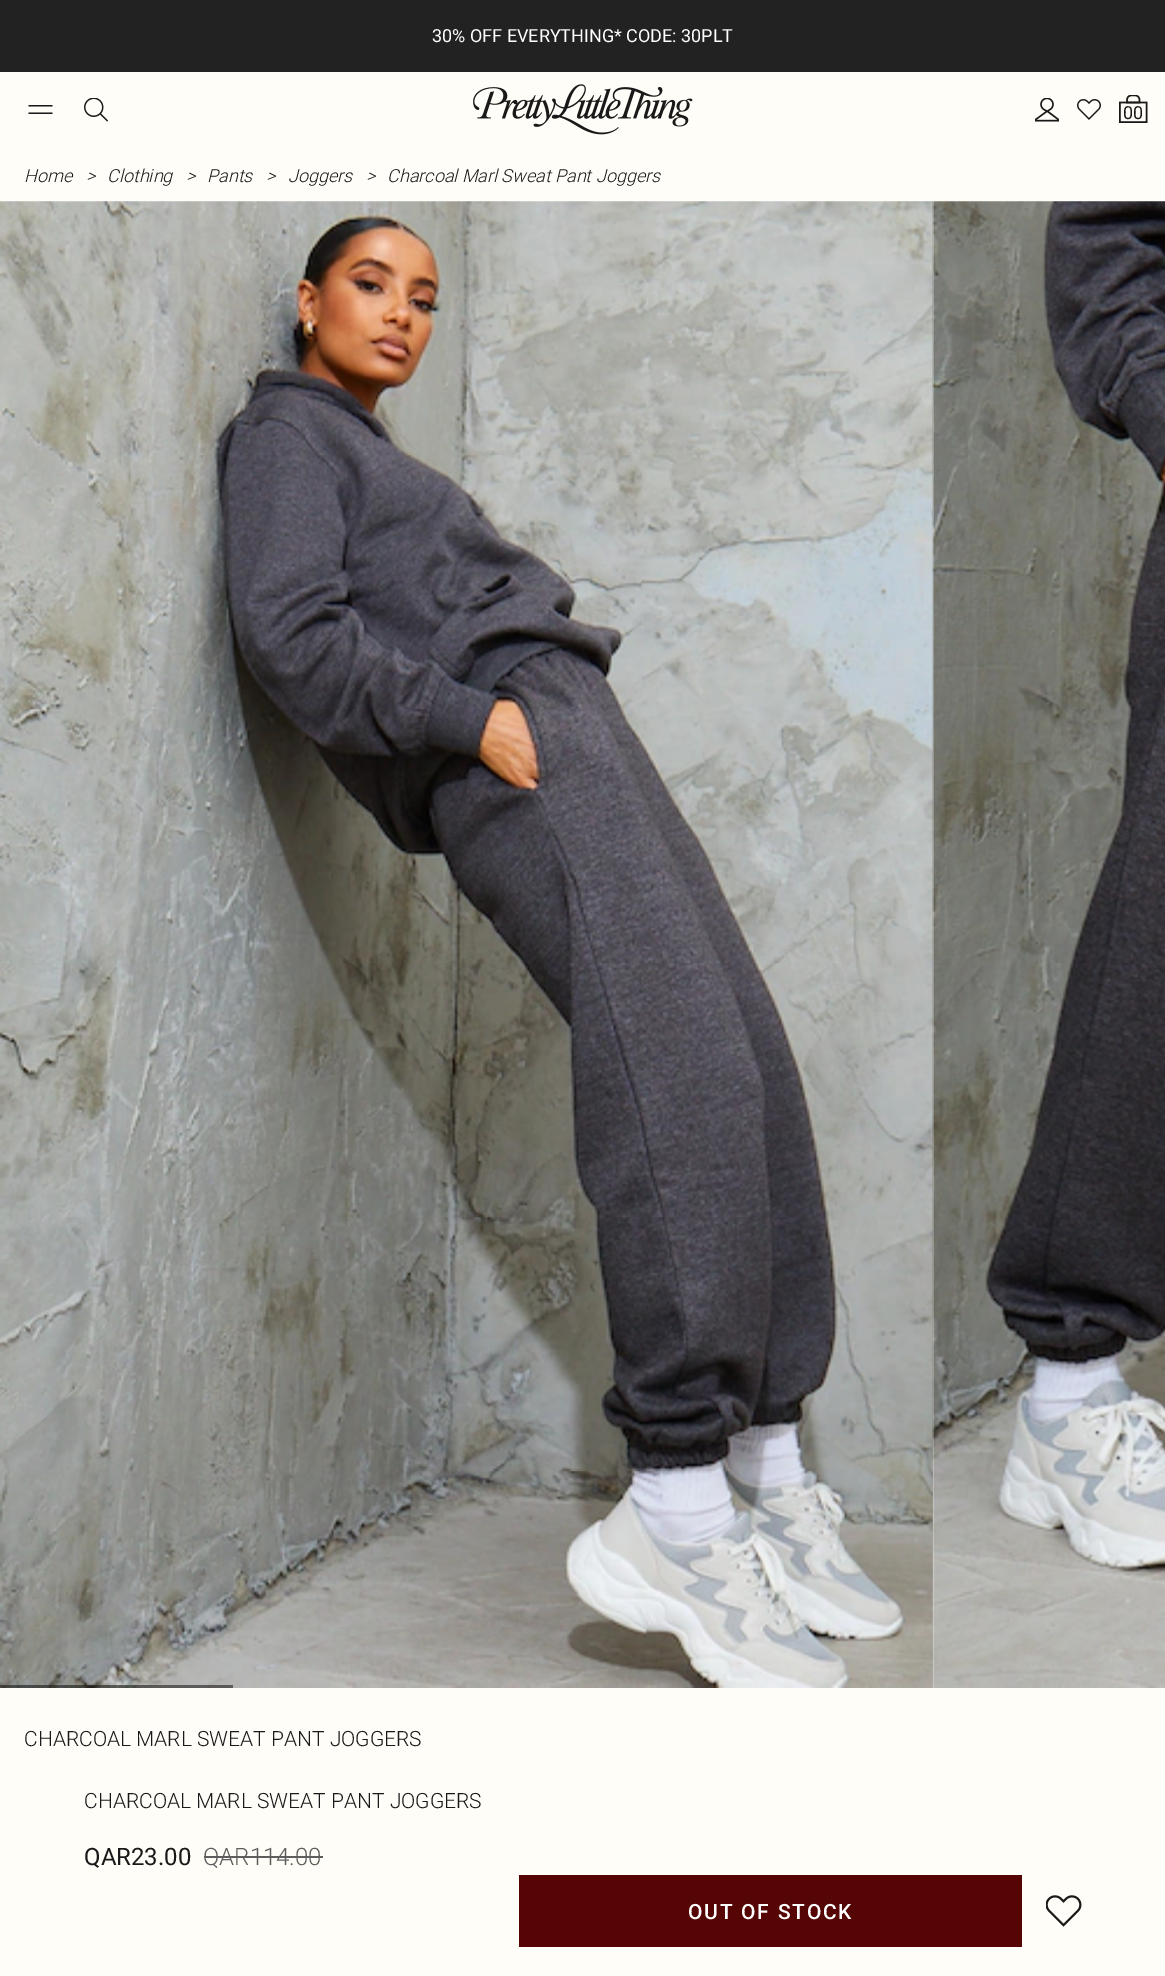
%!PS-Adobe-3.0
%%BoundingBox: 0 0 1165 1976
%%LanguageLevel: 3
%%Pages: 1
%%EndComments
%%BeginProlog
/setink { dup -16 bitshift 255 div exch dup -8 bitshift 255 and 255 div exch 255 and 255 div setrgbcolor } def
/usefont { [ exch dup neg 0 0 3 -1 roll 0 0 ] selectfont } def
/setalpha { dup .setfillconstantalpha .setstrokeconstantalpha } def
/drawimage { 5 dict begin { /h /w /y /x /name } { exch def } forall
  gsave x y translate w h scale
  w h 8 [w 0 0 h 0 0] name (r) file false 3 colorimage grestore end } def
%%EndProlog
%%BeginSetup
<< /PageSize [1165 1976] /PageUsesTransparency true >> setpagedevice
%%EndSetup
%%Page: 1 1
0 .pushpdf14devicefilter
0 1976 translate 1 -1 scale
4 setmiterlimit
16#FFFDF7 setink
0 0 1165 1976 rectfill
16#222222 setink
0 0 1165 72 rectfill
/Roboto-Regular 18 usefont
16#FFFFFF setink
432 42 moveto (30% OFF EVERYTHING* CODE: 30PLT) show
16#191919 setink
28.5 105 moveto 52.5 105 lineto 52.5 106.5 lineto 28.5 106.5 lineto closepath 52.5 112.5 moveto 52.5 114 lineto 28.5 114 lineto 28.5 112.5 lineto closepath fill
(img1.raw) 84 98 24 24 drawimage
(img2.raw) 473 84 220 51 drawimage
(img3.raw) 1035 98 24 24 drawimage
(img4.raw) 1077 99 24 21 drawimage
(img5.raw) 1119 95 29 28 drawimage
1123 119 moveto (00) show
/Roboto-LightItalic 18 usefont
[
    [(Home) 24 182]
    [(>) 86 182]
    [(Clothing) 107 182]
    [(>) 186 182]
    [(Pants) 207 182]
    [(>) 266 182]
    [(Joggers) 288 182]
    [(>) 366 182]
    [(Charcoal Marl Sweat Pant Joggers) 387 182]
] { aload pop moveto show } forall
(img6.raw) 0 201 933 1487 drawimage
(img7.raw) 932 201 233 1487 drawimage
0.5 setalpha
16#000000 setink
0 1685 233 3 rectfill
/Roboto-Light 21 usefont
1 setalpha
16#191919 setink
24 1746 moveto (CHARCOAL MARL SWEAT PANT JOGGERS) show
84 1808 moveto (CHARCOAL MARL SWEAT PANT JOGGERS) show
/Roboto-Regular 24 usefont
84 1865 moveto (QAR23.00) show
/Roboto-Light 24 usefont
16#5D5D5D setink
203 1865 moveto (QAR114.00) show
204 1856 119 2 rectfill
16#550503 setink
519 1875 503 72 rectfill
/Roboto-Medium 21 usefont
16#FFFFFF setink
688 1919 moveto 1.75 0 (OUT OF STOCK) ashow
(img8.raw) 1046 1895 36 32 drawimage
.poppdf14devicefilter showpage
%%EOF
